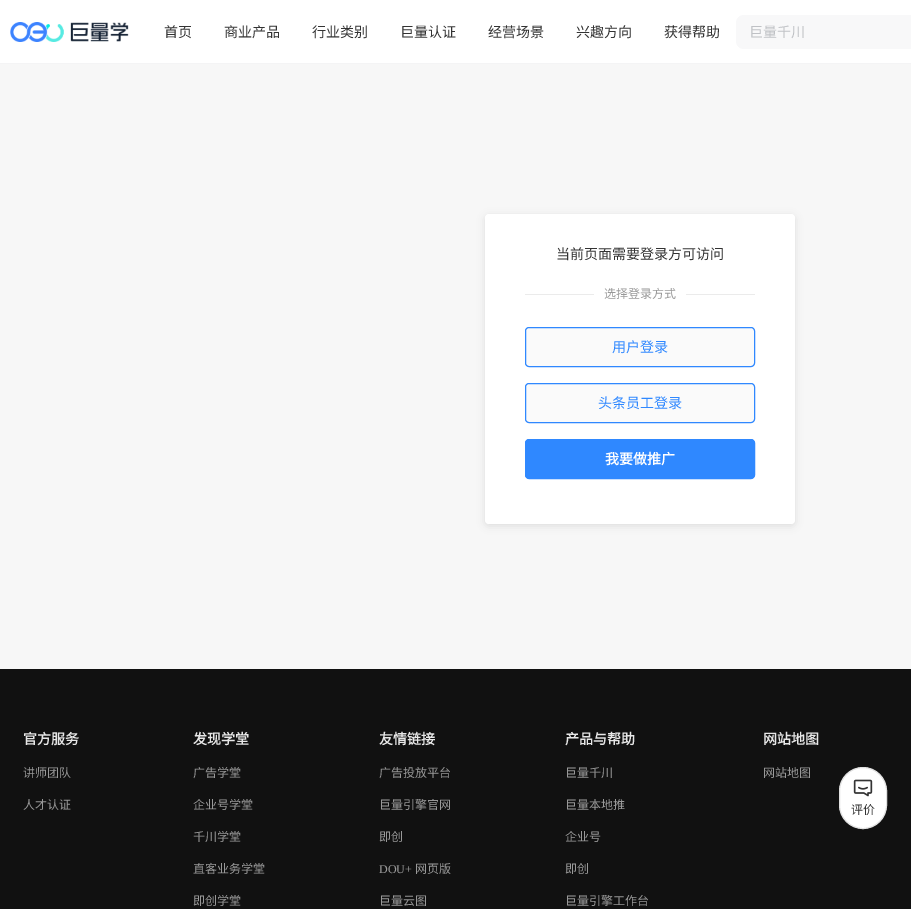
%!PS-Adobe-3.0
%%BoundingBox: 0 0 911 909
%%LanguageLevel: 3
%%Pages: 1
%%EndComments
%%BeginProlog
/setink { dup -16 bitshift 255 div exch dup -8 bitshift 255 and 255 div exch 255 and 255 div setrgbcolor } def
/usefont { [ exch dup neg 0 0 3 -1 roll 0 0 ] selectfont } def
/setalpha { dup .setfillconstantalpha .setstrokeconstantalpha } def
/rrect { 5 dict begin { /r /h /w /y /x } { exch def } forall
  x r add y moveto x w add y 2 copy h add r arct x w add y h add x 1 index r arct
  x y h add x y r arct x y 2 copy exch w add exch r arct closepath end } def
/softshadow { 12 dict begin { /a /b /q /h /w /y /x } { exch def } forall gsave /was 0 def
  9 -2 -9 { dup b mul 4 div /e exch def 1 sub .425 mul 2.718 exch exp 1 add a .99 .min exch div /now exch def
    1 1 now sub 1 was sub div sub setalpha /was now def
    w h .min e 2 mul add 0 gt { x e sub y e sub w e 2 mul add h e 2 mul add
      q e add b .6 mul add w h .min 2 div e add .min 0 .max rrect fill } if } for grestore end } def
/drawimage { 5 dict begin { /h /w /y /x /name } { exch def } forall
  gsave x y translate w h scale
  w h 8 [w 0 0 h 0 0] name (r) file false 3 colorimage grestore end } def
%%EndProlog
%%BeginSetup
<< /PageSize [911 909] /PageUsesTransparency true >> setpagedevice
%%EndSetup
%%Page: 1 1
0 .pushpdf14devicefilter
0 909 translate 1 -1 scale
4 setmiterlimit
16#FFFFFF setink
0 0 911 909 rectfill
(img1.raw) 10 22 119 20 drawimage
/NotoSansCJKSC-Regular 14 usefont
16#333333 setink
[
    [(首页) 164 37]
    [(商业产品) 224 37]
    [(行业类别) 312 37]
    [(巨量认证) 400 37]
    [(经营场景) 488 37]
    [(兴趣方向) 576 37]
    [(获得帮助) 664 37]
] { aload pop moveto show } forall
16#F8F8F9 setink
736 15 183 34 8 rrect fill
16#BFC1C5 setink
749 37 moveto (巨量千川) show
16#F4F4F5 setink
0 63 911 1 rectfill
16#F7F7F7 setink
0 64 911 605 rectfill
16#4A4A4A setink
485 216 310 310 4 4 0.15 softshadow
16#FFFFFF setink
485 214 310 310 4 rrect fill
16#333333 setink
556 259 moveto (当前页面需要登录方可访问) show
16#EBEBEB setink
525 294 230 1 rectfill
16#FFFFFF setink
594 294 92 1 rectfill
/NotoSansCJKSC-Regular 12 usefont
16#999999 setink
604 298 moveto (选择登录方式) show
16#FAFAFA setink
525.5 327.5 229 39 3.5 rrect gsave fill grestore
16#2F88FF setink
stroke
/NotoSansCJKSC-Regular 14 usefont
612 352 moveto (用户登录) show
16#FAFAFA setink
525.5 383.5 229 39 3.5 rrect gsave fill grestore
16#2F88FF setink
stroke
598 408 moveto (头条员工登录) show
525.5 439.5 229 39 3.5 rrect gsave fill grestore
stroke
/NotoSansCJKSC-Bold 14 usefont
16#FFFFFF setink
605 464 moveto (我要做推广) show
16#111111 setink
0 669 911 240 rectfill
16#E7E7E7 setink
23 744 moveto (官方服务) show
/NotoSansCJKSC-Regular 12 usefont
16#999999 setink
23 777 moveto (讲师团队) show
23 809 moveto (人才认证) show
/NotoSansCJKSC-Bold 14 usefont
16#E7E7E7 setink
193 744 moveto (发现学堂) show
/NotoSansCJKSC-Regular 12 usefont
16#999999 setink
[
    [(广告学堂) 193 777]
    [(企业号学堂) 193 809]
    [(千川学堂) 193 841]
    [(直客业务学堂) 193 873]
    [(即创学堂) 193 905]
] { aload pop moveto show } forall
/NotoSansCJKSC-Bold 14 usefont
16#E7E7E7 setink
379 744 moveto (友情链接) show
/NotoSansCJKSC-Regular 12 usefont
16#999999 setink
[
    [(广告投放平台) 379 777]
    [(巨量引擎官网) 379 809]
    [(即创) 379 841]
] { aload pop moveto show } forall
/LiberationSerif-Regular 12 usefont
379 873 moveto (DOU+) show
/NotoSansCJKSC-Regular 12 usefont
415 873 moveto (网页版) show
379 905 moveto (巨量云图) show
/NotoSansCJKSC-Bold 14 usefont
16#E7E7E7 setink
565 744 moveto (产品与帮助) show
/NotoSansCJKSC-Regular 12 usefont
16#999999 setink
[
    [(巨量千川) 565 777]
    [(巨量本地推) 565 809]
    [(企业号) 565 841]
    [(即创) 565 873]
    [(巨量引擎工作台) 565 905]
] { aload pop moveto show } forall
/NotoSansCJKSC-Bold 14 usefont
16#E7E7E7 setink
763 744 moveto (网站地图) show
/NotoSansCJKSC-Regular 12 usefont
16#999999 setink
763 777 moveto (网站地图) show
16#FFFFFF setink
839.5 767.5 47 61 23.5 rrect gsave fill grestore
16#E0E0E0 setink
stroke
(img2.raw) 853 779 20 18 drawimage
16#333333 setink
851 814 moveto (评价) show
.poppdf14devicefilter showpage
%%EOF
